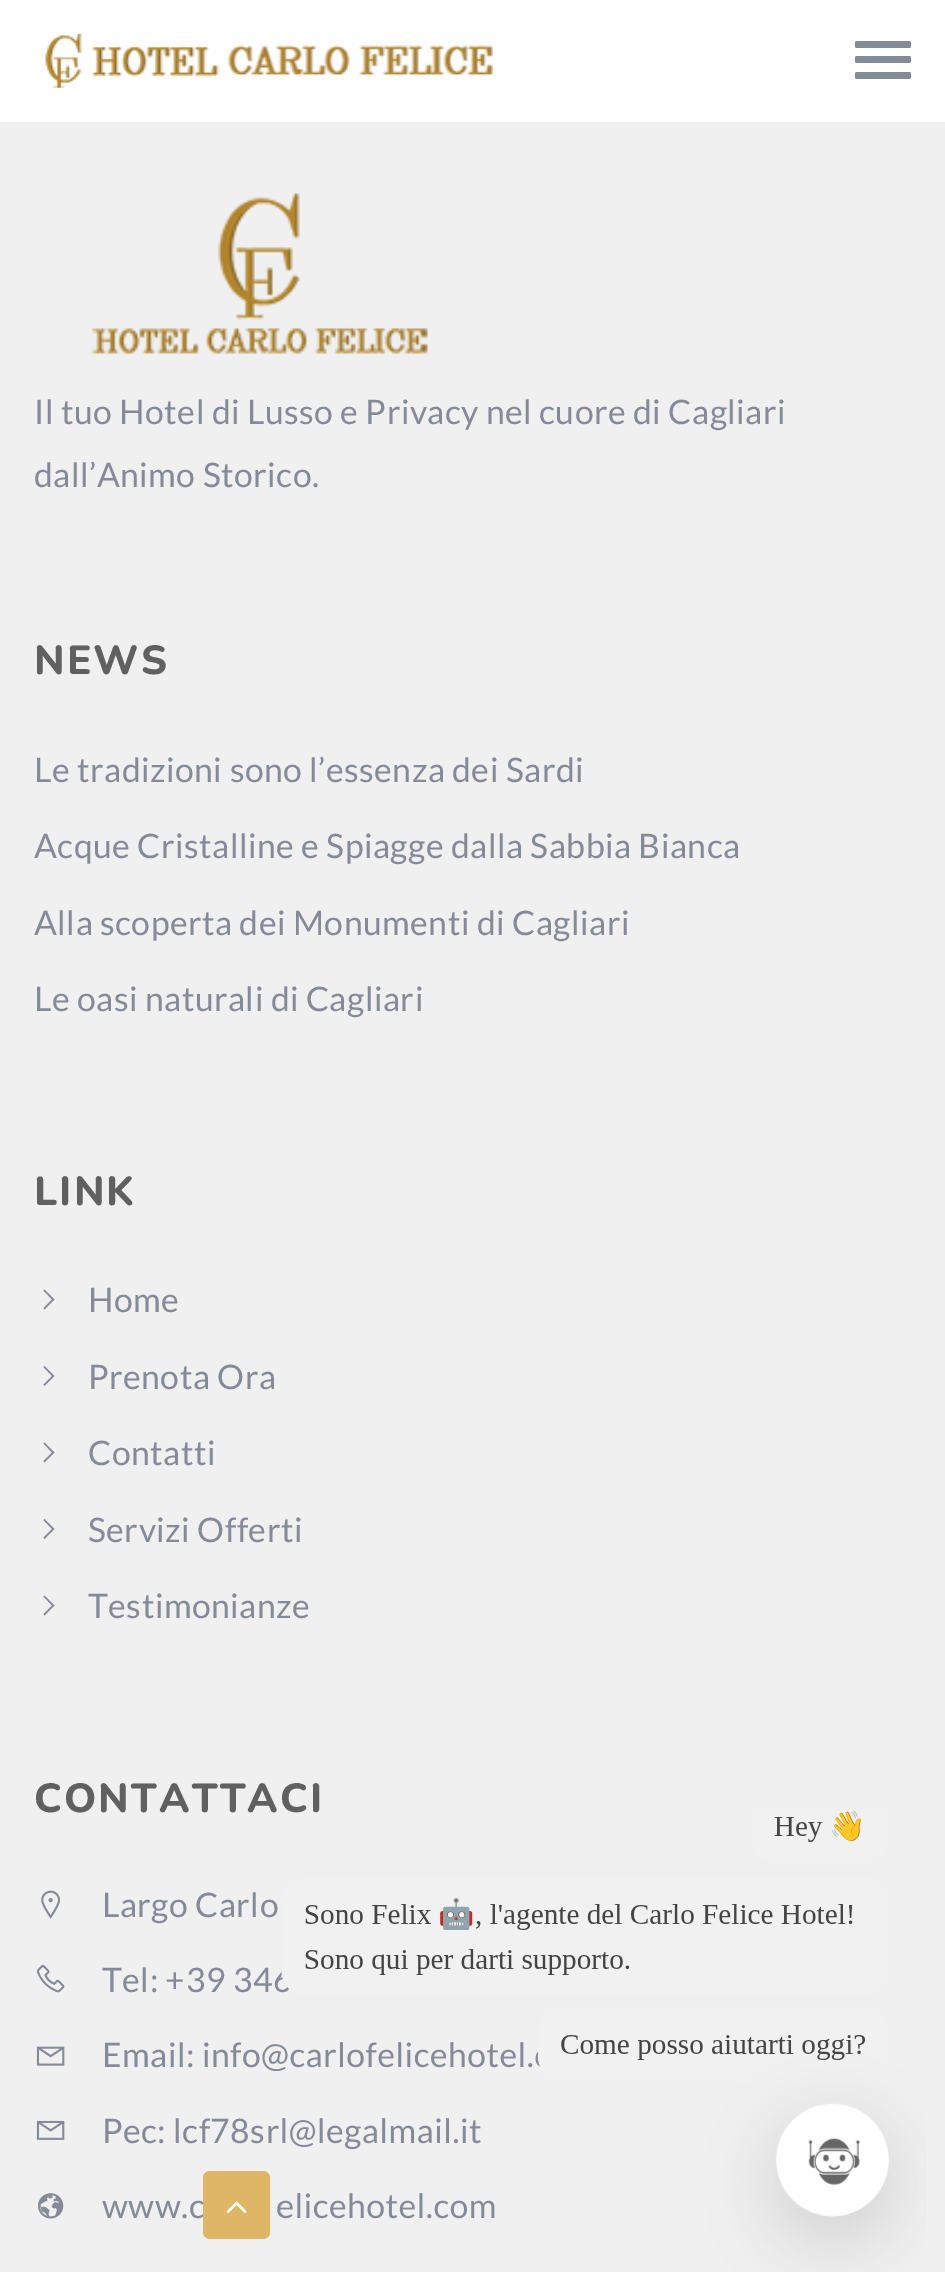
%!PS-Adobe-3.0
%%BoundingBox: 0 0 945 2272
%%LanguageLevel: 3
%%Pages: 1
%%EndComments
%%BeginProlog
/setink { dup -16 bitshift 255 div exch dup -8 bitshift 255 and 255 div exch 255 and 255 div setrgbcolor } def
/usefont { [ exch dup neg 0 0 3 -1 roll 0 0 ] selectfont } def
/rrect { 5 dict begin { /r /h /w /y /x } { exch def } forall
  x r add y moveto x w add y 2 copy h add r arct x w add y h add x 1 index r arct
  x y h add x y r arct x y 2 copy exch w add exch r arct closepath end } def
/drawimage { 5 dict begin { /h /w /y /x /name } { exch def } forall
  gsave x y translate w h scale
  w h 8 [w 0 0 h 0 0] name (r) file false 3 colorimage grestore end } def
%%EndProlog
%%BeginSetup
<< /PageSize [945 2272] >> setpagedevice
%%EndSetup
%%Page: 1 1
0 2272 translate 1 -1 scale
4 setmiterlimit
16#F0F0F0 setink
0 0 945 2272 rectfill
16#FFFFFF setink
0 0 945 122 rectfill
16#EBEBEB setink
0 122 945 2 rectfill
(img1.raw) 45 33 449 55 drawimage
16#858A99 setink
855 41 56 7 2 rrect fill
855 56 56 7 2 rrect fill
855 72 56 7 2 rrect fill
(img2.raw) 91 193 338 161 drawimage
/Lato-Regular 33.75 usefont
34 424 moveto 0.45 0 (Il tuo Hotel di Lusso e Privacy nel cuore di Cagliari) ashow
34 487 moveto 0.45 0 (dall’Animo Storico.) ashow
/Nunito-ExtraBold 40.5 usefont
16#606060 setink
34 674 moveto 2.25 0 (NEWS) ashow
/Lato-Regular 33.75 usefont
16#858A99 setink
34 782 moveto 0.45 0 (Le tradizioni sono l’essenza dei Sardi) ashow
34 858 moveto 0.45 0 (Acque Cristalline e Spiagge dalla Sabbia Bianca) ashow
34 935 moveto 0.45 0 (Alla scoperta dei Monumenti di Cagliari) ashow
34 1011 moveto 0.45 0 (Le oasi naturali di Cagliari) ashow
/Nunito-ExtraBold 40.5 usefont
16#606060 setink
34 1205 moveto 2.25 0 (LINK) ashow
16#858A99 setink
44.5 1289.5 moveto 43.5 1290.5 lineto 52 1299.5 lineto 43.5 1308 lineto 44.5 1309.5 lineto 54.5 1299.5 lineto closepath fill
/Lato-Regular 33.75 usefont
88 1312 moveto 0.45 0 (Home) ashow
44.5 1366 moveto 43.5 1367 lineto 52 1376 lineto 43.5 1384.5 lineto 44.5 1386 lineto 54.5 1376 lineto closepath fill
88 1389 moveto 0.45 0 (Prenota Ora) ashow
44.5 1442.5 moveto 43.5 1443.5 lineto 52 1452.5 lineto 43.5 1461 lineto 44.5 1462.5 lineto 54.5 1452.5 lineto closepath fill
88 1465 moveto 0.45 0 (Contatti) ashow
44.5 1519 moveto 43.5 1520 lineto 52 1529 lineto 43.5 1537.5 lineto 44.5 1539 lineto 54.5 1529 lineto closepath fill
88 1542 moveto 0.45 0 (Servizi Offerti) ashow
44.5 1595.5 moveto 43.5 1596.5 lineto 52 1605.5 lineto 43.5 1614 lineto 44.5 1615.5 lineto 54.5 1605.5 lineto closepath fill
88 1618 moveto 0.45 0 (Testimonianze) ashow
/Nunito-ExtraBold 40.5 usefont
16#606060 setink
34 1812 moveto 2.25 0 (CONTATTACI) ashow
(img3.raw) 41 1890 20 29 drawimage
/Lato-Regular 33.75 usefont
16#858A99 setink
102 1917 moveto 0.45 0 (Largo Carlo) ashow
(img4.raw) 36 1964 29 29 drawimage
102 1992 moveto 0.45 0 (Tel: +39 346) ashow
(img5.raw) 36 2046 29 20 drawimage
102 2067 moveto 0.45 0 (Email: info@carlofelicehotel.) ashow
(img6.raw) 36 2120 29 20 drawimage
102 2143 moveto 0.45 0 (Pec: lcf78srl@legalmail.it) ashow
(img7.raw) 38 2193 26 26 drawimage
102 2218 moveto 0.45 0 (www.c) ashow
276 2218 moveto 0.45 0 (elicehotel.com) ashow
16#DEB666 setink
203 2171 67 68 7 rrect fill
(img8.raw) 226 2201 21 12 drawimage
(img9.raw) 281 1810 646 462 drawimage
showpage
%%EOF
